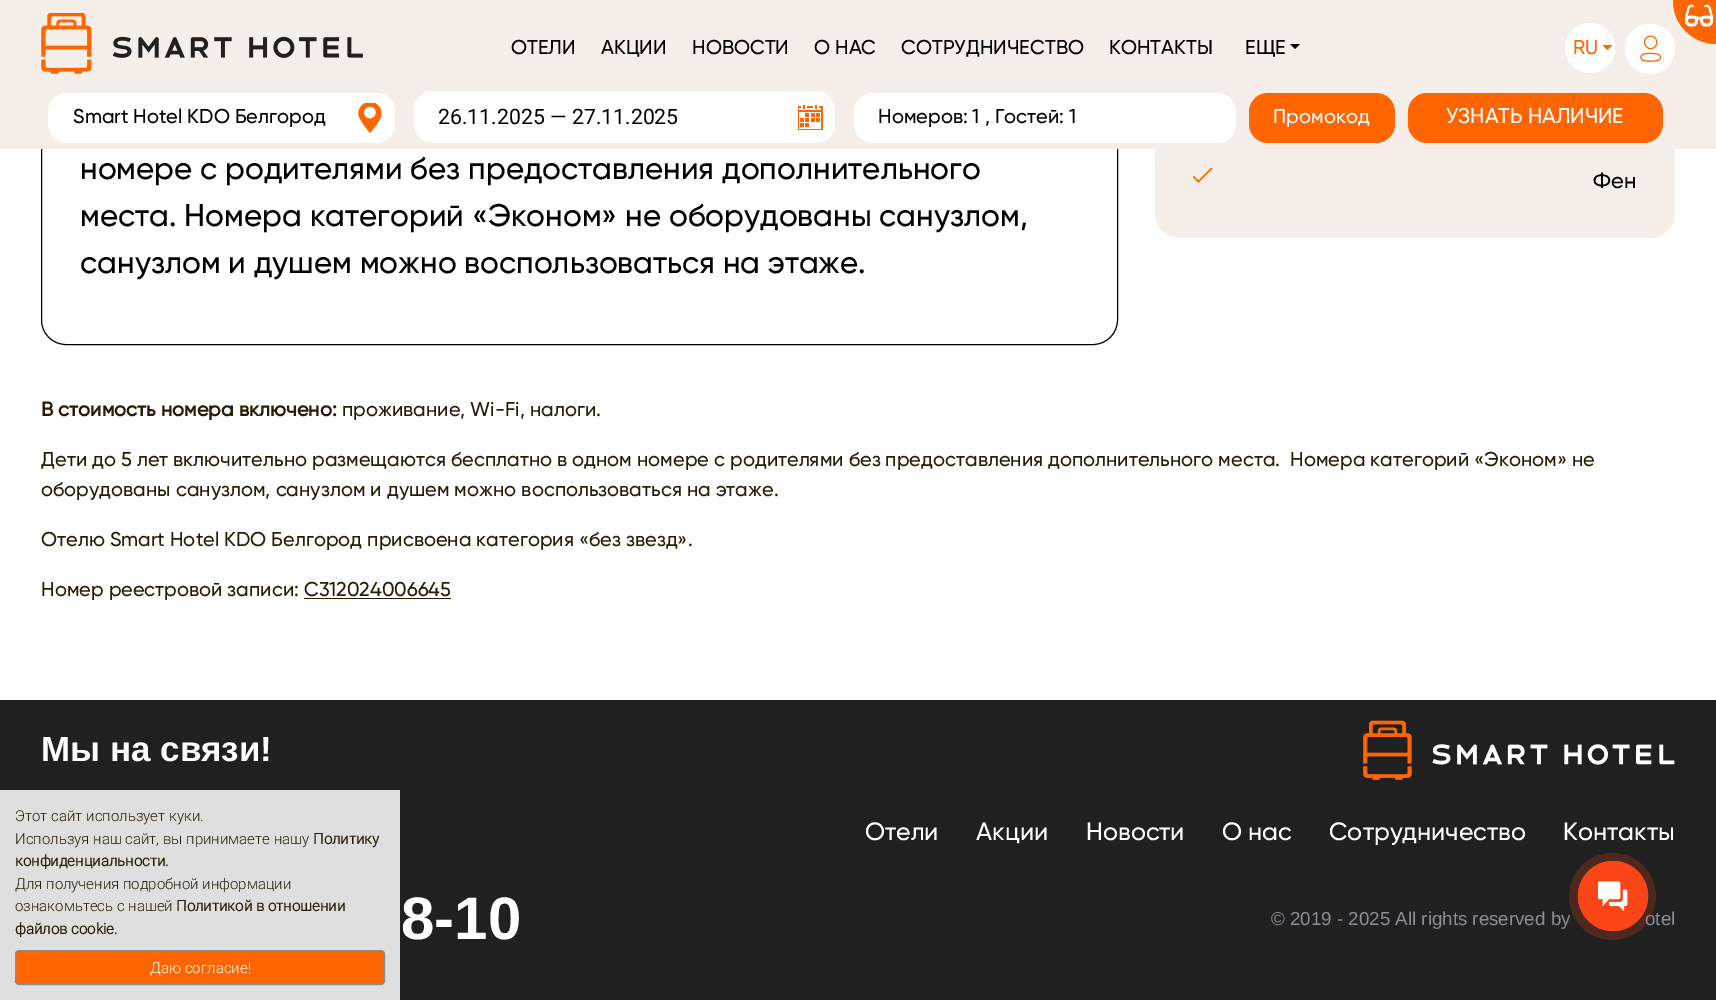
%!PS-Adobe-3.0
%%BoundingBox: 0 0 1716 1000
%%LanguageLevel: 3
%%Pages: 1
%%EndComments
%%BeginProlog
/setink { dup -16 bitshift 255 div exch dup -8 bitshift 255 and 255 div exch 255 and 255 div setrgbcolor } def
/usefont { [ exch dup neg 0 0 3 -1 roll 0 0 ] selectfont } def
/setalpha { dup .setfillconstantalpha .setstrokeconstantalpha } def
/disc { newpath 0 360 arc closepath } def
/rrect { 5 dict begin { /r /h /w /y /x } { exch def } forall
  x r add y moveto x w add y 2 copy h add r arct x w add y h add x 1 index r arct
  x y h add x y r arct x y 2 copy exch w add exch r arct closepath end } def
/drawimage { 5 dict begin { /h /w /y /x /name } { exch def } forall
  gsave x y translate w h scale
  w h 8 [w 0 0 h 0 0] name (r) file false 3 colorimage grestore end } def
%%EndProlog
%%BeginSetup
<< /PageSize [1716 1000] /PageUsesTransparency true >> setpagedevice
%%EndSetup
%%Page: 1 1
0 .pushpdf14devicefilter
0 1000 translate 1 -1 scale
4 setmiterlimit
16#FFFFFF setink
0 0 1716 1000 rectfill
16#000000 setink
41.5 -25.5 1076 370 24.5 rrect stroke
16#F6EEE9 setink
1155 -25 520 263 25 rrect fill
0 0 1716 149 rectfill
16#FFFFFF setink
1650 49 25 disc fill
16#FF6500 setink
1673 0 moveto 1716 0 lineto 1716 44 lineto 1692.5 44 1673 24.5 1673 1 curveto closepath fill
(img1.raw) 1685 4 29 23 drawimage
(img2.raw) 41 13 322 61 drawimage
/Gilroy-Medium 20 usefont
16#000000 setink
[
    [(ОТЕЛИ) 511 54]
    [(АКЦИИ) 601 54]
    [(НОВОСТИ) 692 54]
    [(О НАС) 814 54]
    [(СОТРУДНИЧЕСТВО) 901 54]
    [(КОНТАКТЫ) 1109 54]
    [(ЕЩЕ) 1245 54]
] { aload pop moveto show } forall
1290 44 moveto 1300 44 lineto 1295 49 lineto closepath fill
16#FFFFFF setink
1590 48 25 disc fill
16#FF6500 setink
1573 54 moveto (RU) show
1602.5 45 moveto 1612.5 45 lineto 1607.5 50 lineto closepath fill
(img3.raw) 1640 35 22 27 drawimage
16#FFFFFF setink
48 93 347 50 19 rrect fill
16#000000 setink
73 123 moveto (Smart Hotel KDO Белгород) show
(img4.raw) 358 103 24 30 drawimage
16#FFFFFF setink
414 91 421 52 19 rrect fill
/Roboto-Regular 21.25 usefont
16#000000 setink
438 124 moveto (26.11.2025 — 27.11.2025) show
(img5.raw) 798 105 25 25 drawimage
16#FFFFFF setink
854 93 382 50 19 rrect fill
/Gilroy-Medium 20 usefont
16#000000 setink
878 123 moveto (Номеров: 1 , Гостей: 1) show
16#FF6500 setink
1249 93 146 50 19 rrect fill
16#FFFFFF setink
1273 123 moveto (Промокод) show
16#FF6500 setink
1408 93 255 50 19 rrect fill
/Gilroy-Medium 21.25 usefont
16#FFFFFF setink
1446 123 moveto (УЗНАТЬ НАЛИЧИЕ) show
/Gilroy-Medium 31.25 usefont
16#000000 setink
[
    [(номере с родителями без предоставления дополнительного) 80 179]
    [(места. Номера категорий «Эконом» не оборудованы санузлом,) 80 226]
    [(санузлом и душем можно воспользоваться на этаже.) 80 273]
] { aload pop moveto show } forall
(img6.raw) 1193 167 20 16 drawimage
/Gilroy-Medium 22 usefont
1593 188 moveto (Фен) show
/Gilroy-Bold 20 usefont
16#281E05 setink
41 416 moveto (В стоимость номера включено:) show
/Gilroy-Medium 20 usefont
[
    [(проживание, Wi-Fi, налоги.) 342 416]
    [(Дети до 5 лет включительно размещаются бесплатно в одном номере с родителями без предоставления дополнительного места.  Номера категорий «Эконом» не) 41 466]
    [(оборудованы санузлом, санузлом и душем можно воспользоваться на этаже.) 41 496]
    [(Отелю Smart Hotel KDO Белгород присвоена категория «без звезд».) 41 546]
    [(Номер реестровой записи: С312024006645) 41 596]
] { aload pop moveto show } forall
304 598 147 1 rectfill
16#202020 setink
0 700 1716 300 rectfill
/LiberationSans-Bold 35 usefont
16#FFFFFF setink
41 761 moveto (Мы на связи!) show
(img7.raw) 1363 720 312 60 drawimage
/Gilroy-Medium 25 usefont
[
    [(Отели) 865 840]
    [(Акции) 976 840]
    [(Новости) 1086 840]
    [(О нас) 1222 840]
    [(Сотрудничество) 1329 840]
    [(Контакты) 1563 840]
] { aload pop moveto show } forall
/LiberationSans-Bold 60 usefont
401 939 moveto (8-10) show
/LiberationSans-Regular 18.75 usefont
16#868E96 setink
1271 925 moveto (© 2019 - 2025 All rights reserved by) show
1645 925 moveto (otel) show
16#DEDFDE setink
0 790 400 210 rectfill
/Roboto-Light 15 usefont
16#281E05 setink
15 821 moveto (Этот сайт использует куки.) show
15 844 moveto (Используя наш сайт, вы принимаете нашу) show
/Roboto-Bold 15 usefont
313 844 moveto (Политику) show
15 866 moveto (конфиденциальности.) show
/Roboto-Light 15 usefont
15 889 moveto (Для получения подробной информации) show
15 911 moveto (ознакомьтесь с нашей) show
/Roboto-Bold 15 usefont
176 911 moveto (Политикой в отношении) show
15 934 moveto (файлов cookie.) show
16#FF6500 setink
15.5 950.5 369 34 3.5 rrect gsave fill grestore
16#868E96 setink
stroke
/Roboto-Light 15 usefont
16#FFFFFF setink
150 973 moveto (Даю согласие!) show
0.2 setalpha
16#FA4616 setink
1612.5 896.5 43.5 disc fill
1 setalpha
1613 896 34.5 disc stroke
1613 896 35 disc fill
(img8.raw) 1598 881 30 30 drawimage
.poppdf14devicefilter showpage
%%EOF
